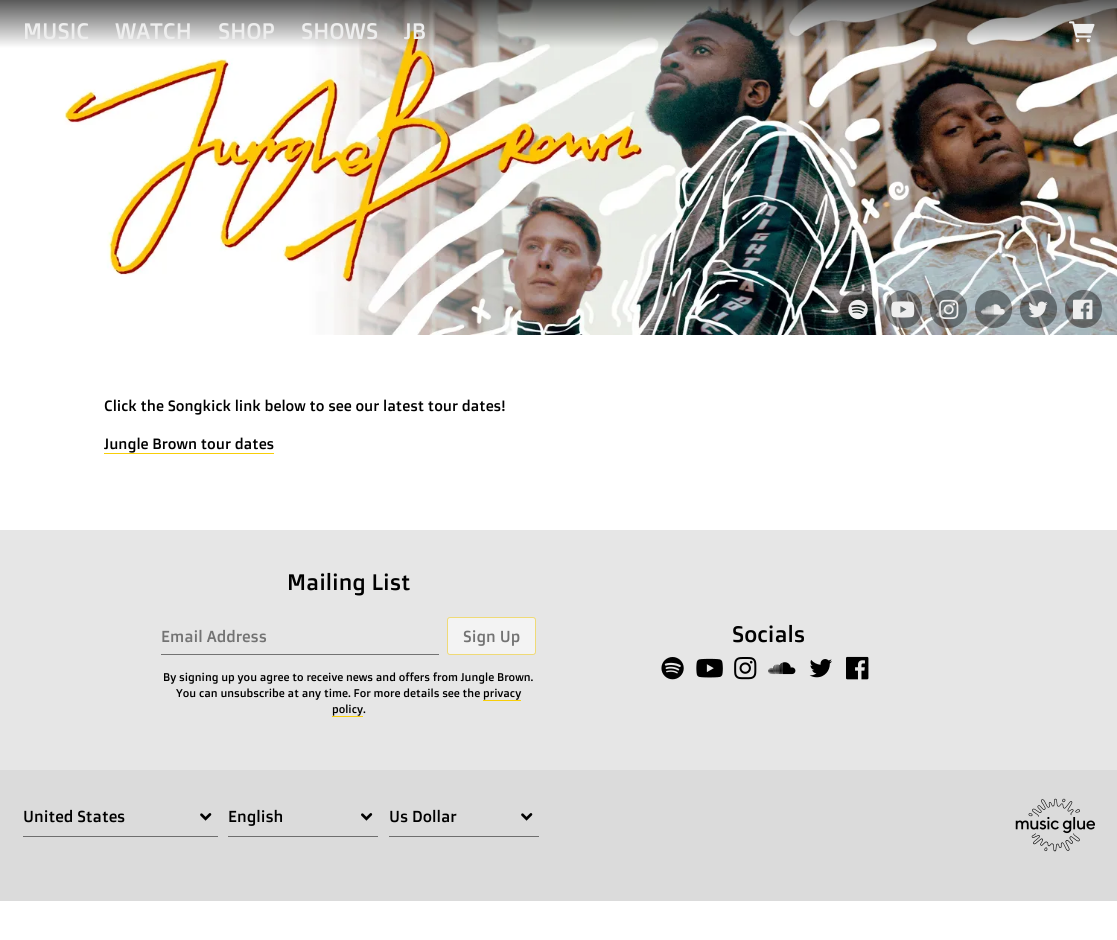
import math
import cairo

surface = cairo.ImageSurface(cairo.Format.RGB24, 1117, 940)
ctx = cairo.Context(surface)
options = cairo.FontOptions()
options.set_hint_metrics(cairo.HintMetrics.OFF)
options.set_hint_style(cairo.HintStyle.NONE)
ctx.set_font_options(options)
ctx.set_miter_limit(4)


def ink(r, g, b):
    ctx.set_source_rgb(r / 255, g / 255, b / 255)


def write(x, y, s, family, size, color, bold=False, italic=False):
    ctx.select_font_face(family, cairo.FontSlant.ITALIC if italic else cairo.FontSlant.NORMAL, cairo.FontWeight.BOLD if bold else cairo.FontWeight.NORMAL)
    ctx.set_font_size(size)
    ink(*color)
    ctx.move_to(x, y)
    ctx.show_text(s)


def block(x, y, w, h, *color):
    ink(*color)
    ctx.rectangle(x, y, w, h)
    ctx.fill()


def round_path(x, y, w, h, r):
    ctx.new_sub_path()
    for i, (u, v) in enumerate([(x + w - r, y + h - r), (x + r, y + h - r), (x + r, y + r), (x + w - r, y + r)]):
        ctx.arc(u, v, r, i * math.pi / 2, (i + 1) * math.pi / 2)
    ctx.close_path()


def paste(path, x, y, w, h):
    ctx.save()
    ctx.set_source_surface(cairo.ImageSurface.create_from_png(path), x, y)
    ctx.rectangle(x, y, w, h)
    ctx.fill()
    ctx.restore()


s1 = dict(family="Doppio One", size=22.5, color=(238, 238, 238))
s2 = dict(family="Doppio One", size=15, color=(0, 0, 0))
s3 = dict(family="Doppio One", size=22.5, color=(0, 0, 0))
s4 = dict(family="Doppio One", size=16, color=(115, 115, 115))
s5 = dict(family="Doppio One", size=11.25, color=(0, 0, 0))
s6 = dict(family="Doppio One", size=16, color=(0, 0, 0))

ink(255, 255, 255)
ctx.paint()
paste("pic1.png", 0, 0, 1117, 335)
ctx.set_source_rgba(0, 0, 0, 0.4)
round_path(840, 290, 37, 38, 18.5)
ctx.fill()
paste("pic2.png", 848, 299, 20, 21)
round_path(885, 290, 37, 38, 18.5)
ctx.fill()
paste("pic3.png", 891, 301, 24, 17)
round_path(930, 290, 37, 38, 18.5)
ctx.fill()
paste("pic4.png", 939, 299, 20, 21)
round_path(975, 290, 37, 38, 18.5)
ctx.fill()
paste("pic5.png", 981, 304, 24, 11)
round_path(1020, 290, 37, 38, 18.5)
ctx.fill()
paste("pic6.png", 1028, 301, 20, 17)
round_path(1065, 290, 37, 38, 18.5)
ctx.fill()
paste("pic7.png", 1073, 299, 20, 21)
write(23, 39, "MUSIC", **s1)
write(115, 39, "WATCH", **s1)
write(218, 39, "SHOP", **s1)
write(301, 39, "SHOWS", **s1)
write(404, 39, "JB", **s1)
paste("pic8.png", 1069, 21, 26, 22)
write(104, 411, "Click the Songkick link below to see our latest tour dates!", **s2)
write(104, 449, "Jungle Brown tour dates", **s2)
block(104, 453, 170, 1, 248, 206, 8)
block(0, 530, 1117, 240, 230, 230, 230)
write(287, 590, "Mailing List", **s3)
write(161, 642, "Email Address", **s4)
block(161, 654, 278, 1, 115, 115, 115)
ink(243, 243, 243)
round_path(447.5, 617.5, 88, 37, 2.5)
ctx.fill_preserve()
ink(239, 218, 119)
ctx.set_line_width(1)
ctx.stroke()
write(463, 642, "Sign Up", **s4)
write(163, 681, "By signing up you agree to receive news and offers from Jungle Brown.", **s5)
write(176, 697, "You can unsubscribe at any time. For more details see the privacy", **s5)
write(332, 713, "policy.", **s5)
block(483, 700, 38, 1, 248, 206, 8)
block(332, 716, 31, 1, 248, 206, 8)
write(732, 642, "Socials", **s3)
paste("pic9.png", 661, 657, 23, 23)
paste("pic10.png", 696, 658, 27, 20)
paste("pic11.png", 734, 657, 23, 23)
paste("pic12.png", 768, 662, 28, 13)
paste("pic13.png", 809, 659, 23, 19)
paste("pic14.png", 846, 656, 23, 24)
block(0, 770, 1117, 131, 219, 219, 219)
block(23, 836, 195, 1, 110, 110, 110)
write(23, 822, "United States", **s6)
paste("pic15.png", 200, 813, 12, 8)
block(228, 836, 150, 1, 110, 110, 110)
write(228, 822, "English", **s6)
paste("pic16.png", 361, 813, 12, 8)
block(389, 836, 150, 1, 110, 110, 110)
write(389, 822, "Us Dollar", **s6)
paste("pic15.png", 521, 813, 12, 8)
paste("pic17.png", 1015, 798, 80, 54)
surface.write_to_png("screenshot.png")
